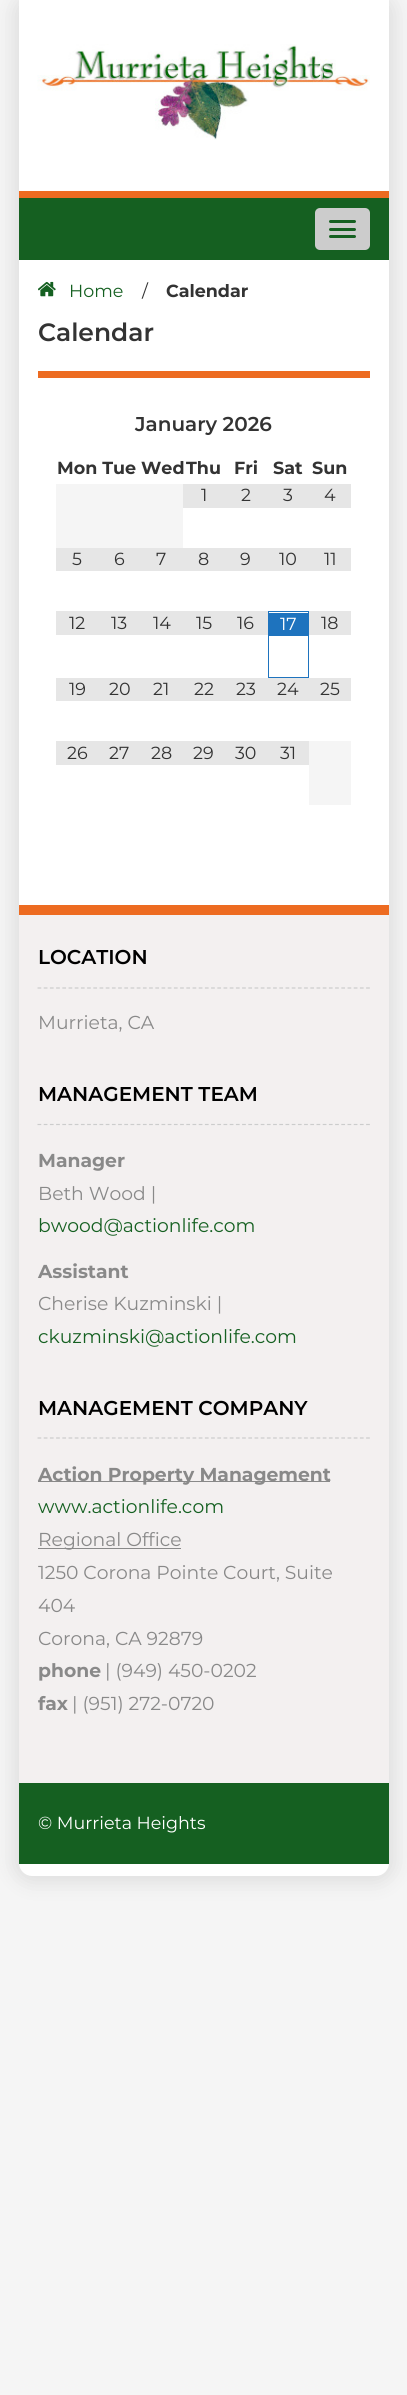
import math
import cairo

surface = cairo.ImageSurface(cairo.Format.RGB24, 407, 2395)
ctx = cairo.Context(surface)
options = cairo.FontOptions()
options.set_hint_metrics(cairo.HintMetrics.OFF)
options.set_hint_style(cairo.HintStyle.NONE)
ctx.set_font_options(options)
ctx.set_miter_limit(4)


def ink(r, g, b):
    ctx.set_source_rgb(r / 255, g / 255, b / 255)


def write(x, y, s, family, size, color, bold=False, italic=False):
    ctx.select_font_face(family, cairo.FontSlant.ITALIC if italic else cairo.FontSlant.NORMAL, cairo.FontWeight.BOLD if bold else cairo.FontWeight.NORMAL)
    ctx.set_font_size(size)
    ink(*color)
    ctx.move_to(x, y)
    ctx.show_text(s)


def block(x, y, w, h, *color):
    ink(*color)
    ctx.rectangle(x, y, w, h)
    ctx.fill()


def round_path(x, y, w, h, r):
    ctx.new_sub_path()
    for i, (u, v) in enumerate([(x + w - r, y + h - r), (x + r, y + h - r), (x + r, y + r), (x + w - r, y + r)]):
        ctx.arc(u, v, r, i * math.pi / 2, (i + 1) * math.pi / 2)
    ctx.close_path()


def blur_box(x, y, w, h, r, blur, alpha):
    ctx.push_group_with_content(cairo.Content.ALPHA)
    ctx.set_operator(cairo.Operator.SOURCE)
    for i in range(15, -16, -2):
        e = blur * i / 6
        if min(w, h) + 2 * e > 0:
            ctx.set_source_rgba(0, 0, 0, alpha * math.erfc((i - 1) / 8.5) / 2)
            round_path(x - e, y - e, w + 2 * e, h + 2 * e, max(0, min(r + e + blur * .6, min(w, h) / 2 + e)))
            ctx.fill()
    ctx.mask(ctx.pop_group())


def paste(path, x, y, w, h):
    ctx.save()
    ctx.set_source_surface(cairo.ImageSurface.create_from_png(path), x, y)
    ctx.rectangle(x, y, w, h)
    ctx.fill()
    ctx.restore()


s1 = dict(family="Montserrat", size=17.5, color=(21, 96, 33))
s2 = dict(family="Montserrat", size=17.5, color=(51, 51, 51))
s3 = dict(family="Montserrat", size=17.5, color=(51, 51, 51), bold=True)
s4 = dict(family="Montserrat SemiBold", size=25, color=(51, 51, 51))
s5 = dict(family="Montserrat SemiBold", size=20, color=(51, 51, 51))
s6 = dict(family="Montserrat", size=17.5, color=(255, 255, 255))
s7 = dict(family="Montserrat SemiBold", size=20, color=(0, 0, 0))
s8 = dict(family="Montserrat", size=18.75, color=(137, 137, 137))
s9 = dict(family="Montserrat", size=18.75, color=(137, 137, 137), bold=True)
s10 = dict(family="Montserrat", size=18.75, color=(21, 96, 33))

ink(245, 245, 245)
ctx.paint()
ink(201, 201, 201)
blur_box(13, -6, 382, 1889, 19, 9.5, 0.5)
ink(255, 255, 255)
ctx.new_path()
ctx.move_to(19, 0)
ctx.line_to(389, 0)
ctx.line_to(389, 1863)
ctx.curve_to(389, 1870, 383, 1876, 376, 1876)
ctx.line_to(32, 1876)
ctx.curve_to(25, 1876, 19, 1870, 19, 1863)
ctx.close_path()
ctx.fill()
paste("pic1.png", 37, 44, 333, 96)
block(19, 191, 370, 7, 237, 107, 33)
block(19, 198, 370, 62, 21, 96, 33)
ink(204, 204, 204)
round_path(315, 208, 55, 42, 5)
ctx.fill()
ink(21, 96, 33)
round_path(329, 220, 27, 3, 1.5)
ctx.fill()
round_path(329, 228, 27, 3, 1.5)
ctx.fill()
round_path(329, 235, 27, 3, 1.5)
ctx.fill()
paste("pic2.png", 38, 281, 18, 16)
write(69, 297, "Home", **s1)
write(142, 297, "/", **s2)
write(166, 297, "Calendar", **s3)
write(38, 341, "Calendar", **s4)
block(38, 371, 332, 7, 237, 107, 33)
write(135, 431, "January 2026", **s5)
write(57, 474, "Mon Tue", **s3)
write(141, 474, "Wed", **s3)
write(186, 474, "Thu", **s3)
write(234, 474, "Fri", **s3)
write(273, 474, "Sat", **s3)
write(312, 474, "Sun", **s3)
block(56, 484, 127, 64, 245, 245, 245)
block(183, 484, 168, 24, 230, 230, 230)
write(201, 501, "1", **s2)
write(241, 501, "2", **s2)
write(283, 501, "3", **s2)
write(324, 501, "4", **s2)
block(56, 548, 295, 23, 230, 230, 230)
write(72, 565, "5", **s2)
write(114, 565, "6", **s2)
write(156, 565, "7", **s2)
write(198, 565, "8", **s2)
write(240, 565, "9", **s2)
write(279, 565, "10", **s2)
write(324, 565, "11", **s2)
block(56, 611, 212, 24, 230, 230, 230)
write(69, 629, "12", **s2)
write(111, 629, "13", **s2)
write(153, 629, "14", **s2)
write(196, 629, "15", **s2)
write(237, 629, "16", **s2)
ctx.rectangle(268.5, 611.5, 40, 66)
ink(30, 115, 190)
ctx.set_line_width(1)
ctx.stroke()
block(269, 613, 39, 23, 30, 115, 190)
write(280, 630, "17", **s6)
block(309, 611, 42, 24, 230, 230, 230)
write(321, 629, "18", **s2)
block(56, 678, 295, 23, 230, 230, 230)
write(69, 695, "19", **s2)
write(109, 695, "20", **s2)
write(153, 695, "21", **s2)
write(194, 695, "22", **s2)
write(236, 695, "23", **s2)
write(277, 695, "24", **s2)
write(320, 695, "25", **s2)
block(56, 741, 253, 24, 230, 230, 230)
write(67, 759, "26", **s2)
write(109, 759, "27", **s2)
write(151, 759, "28", **s2)
write(193, 759, "29", **s2)
write(235, 759, "30", **s2)
write(280, 759, "31", **s2)
block(309, 741, 42, 64, 245, 245, 245)
block(19, 915, 370, 868, 243, 240, 240)
block(19, 905, 370, 10, 237, 107, 33)
ctx.new_path()
ctx.move_to(37.5, 988)
ctx.line_to(370, 988)
ink(204, 204, 204)
ctx.set_line_width(1.2)
ctx.set_dash([3.75, 2.45])
ctx.stroke()
write(38, 964, "LOCATION", **s7)
write(38, 1029, "Murrieta, CA", **s8)
ctx.new_path()
ctx.move_to(37.5, 1124.5)
ctx.line_to(370, 1124.5)
ink(204, 204, 204)
ctx.stroke()
write(38, 1101, "MANAGEMENT TEAM", **s7)
write(38, 1167, "Manager", **s9)
write(38, 1200, "Beth Wood |", **s8)
write(38, 1232, "bwood@actionlife.com", **s10)
write(38, 1278, "Assistant", **s9)
write(38, 1310, "Cherise Kuzminski |", **s8)
write(38, 1343, "ckuzminski@actionlife.com", **s10)
ctx.new_path()
ctx.move_to(37.5, 1438)
ctx.line_to(370, 1438)
ink(204, 204, 204)
ctx.stroke()
write(38, 1415, "MANAGEMENT COMPANY", **s7)
block(38, 1481, 292, 1, 137, 137, 137)
write(38, 1481, "Action Property Management", **s9)
write(38, 1513, "www.actionlife.com", **s10)
block(38, 1548, 143, 1, 137, 137, 137)
write(38, 1546, "Regional Office", **s8)
write(38, 1579, "1250 Corona Pointe Court, Suite", **s8)
write(38, 1612, "404", **s8)
write(38, 1645, "Corona, CA 92879", **s8)
write(38, 1677, "phone", **s9)
write(105, 1677, "| (949) 450-0202", **s8)
write(38, 1710, "fax", **s9)
write(72, 1710, "| (951) 272-0720", **s8)
block(19, 1783, 370, 81, 21, 96, 33)
write(38, 1829, "© Murrieta Heights", **s6)
surface.write_to_png("screenshot.png")
